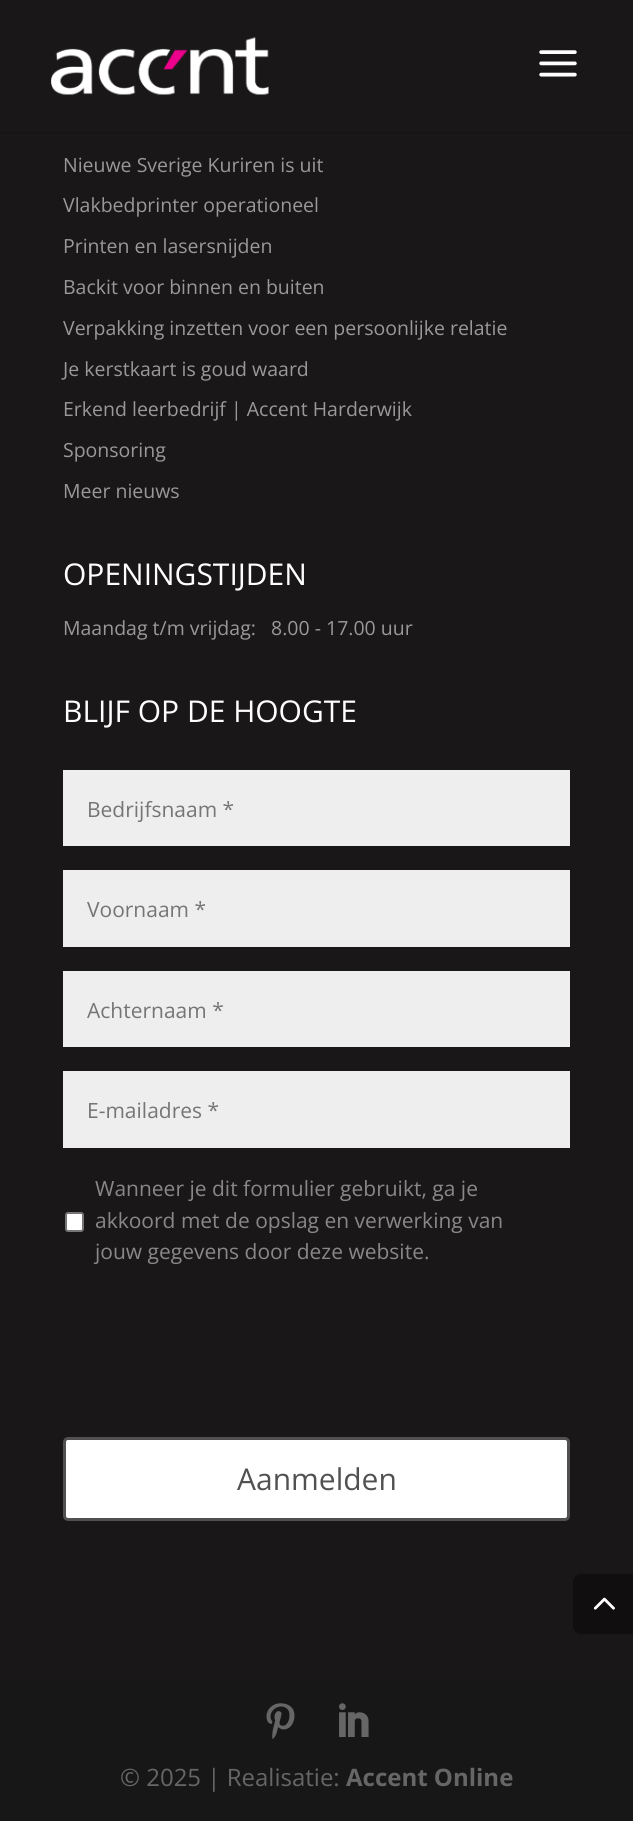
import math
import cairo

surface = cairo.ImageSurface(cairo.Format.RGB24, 633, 1821)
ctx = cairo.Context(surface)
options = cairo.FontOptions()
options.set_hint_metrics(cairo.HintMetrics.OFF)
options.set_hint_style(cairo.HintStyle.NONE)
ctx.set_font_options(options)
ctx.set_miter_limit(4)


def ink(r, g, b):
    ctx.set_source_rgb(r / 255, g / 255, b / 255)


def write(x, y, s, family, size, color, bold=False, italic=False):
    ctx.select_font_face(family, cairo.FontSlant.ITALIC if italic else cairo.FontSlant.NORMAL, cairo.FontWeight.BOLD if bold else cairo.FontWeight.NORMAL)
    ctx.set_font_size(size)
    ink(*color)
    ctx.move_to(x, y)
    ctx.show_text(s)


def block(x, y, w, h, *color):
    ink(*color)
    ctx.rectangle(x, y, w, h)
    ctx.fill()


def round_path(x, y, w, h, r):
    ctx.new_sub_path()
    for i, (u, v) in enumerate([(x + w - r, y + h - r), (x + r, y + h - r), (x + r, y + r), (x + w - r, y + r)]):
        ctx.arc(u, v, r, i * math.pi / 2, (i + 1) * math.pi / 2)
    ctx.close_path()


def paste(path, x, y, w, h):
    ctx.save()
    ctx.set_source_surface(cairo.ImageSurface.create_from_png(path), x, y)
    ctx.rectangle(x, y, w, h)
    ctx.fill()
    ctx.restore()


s1 = dict(family="Open Sans", size=19.5, color=(153, 153, 153))
s2 = dict(family="Open Sans", size=30, color=(255, 255, 255))
s3 = dict(family="Open Sans", size=21, color=(117, 117, 117))
s4 = dict(family="Open Sans", size=21, color=(136, 136, 136))
s5 = dict(family="Open Sans", size=30, color=(81, 81, 81))
s6 = dict(family="Open Sans", size=24, color=(102, 102, 102))
s7 = dict(family="Open Sans", size=24, color=(102, 102, 102), bold=True)

ink(26, 23, 24)
ctx.paint()
ctx.set_source_rgba(0, 0, 0, 0.1)
ctx.rectangle(0, 132, 633, 2)
ctx.fill()
paste("pic1.png", 51, 37, 218, 58)
paste("pic2.png", 539, 50, 38, 27)
write(63, 172, "Nieuwe Sverige Kuriren is uit", **s1)
write(63, 212, "Vlakbedprinter operationeel", **s1)
write(63, 253, "Printen en lasersnijden", **s1)
write(63, 294, "Backit voor binnen en buiten", **s1)
write(63, 335, "Verpakking inzetten voor een persoonlijke relatie", **s1)
write(63, 376, "Je kerstkaart is goud waard", **s1)
write(63, 416, "Erkend leerbedrijf | Accent Harderwijk", **s1)
write(63, 457, "Sponsoring", **s1)
write(63, 498, "Meer nieuws", **s1)
write(63, 585, "OPENINGSTIJDEN", **s2)
write(63, 635, "Maandag t/m vrijdag:   8.00 - 17.00 uur", **s1)
write(63, 722, "BLIJF OP DE HOOGTE", **s2)
block(63, 770, 507, 76, 238, 238, 238)
write(87, 817, "Bedrijfsnaam *", **s3)
block(63, 870, 507, 77, 238, 238, 238)
write(87, 917, "Voornaam *", **s3)
block(63, 971, 507, 76, 238, 238, 238)
write(87, 1018, "Achternaam *", **s3)
block(63, 1071, 507, 77, 238, 238, 238)
write(87, 1118, "E-mailadres *", **s3)
ink(255, 255, 255)
round_path(66, 1213, 17, 18, 2)
ctx.fill_preserve()
ink(118, 118, 118)
ctx.stroke()
write(95, 1196, "Wanneer je dit formulier gebruikt, ga je", **s4)
write(95, 1228, "akkoord met de opslag en verwerking van", **s4)
write(95, 1259, "jouw gegevens door deze website.", **s4)
ink(255, 255, 255)
round_path(64.5, 1438.5, 504, 81, 3.5)
ctx.fill_preserve()
ink(81, 81, 81)
ctx.set_line_width(3)
ctx.stroke()
write(237, 1490, "Aanmelden", **s5)
ink(16, 14, 14)
ctx.new_path()
ctx.move_to(581, 1574)
ctx.line_to(633, 1574)
ctx.line_to(633, 1634)
ctx.line_to(581, 1634)
ctx.curve_to(576.5, 1634, 573, 1630.5, 573, 1626)
ctx.line_to(573, 1582)
ctx.curve_to(573, 1577.5, 576.5, 1574, 581, 1574)
ctx.close_path()
ctx.fill()
paste("pic3.png", 593, 1597, 22, 13)
block(0, 1680, 633, 141, 23, 23, 23)
paste("pic4.png", 266, 1703, 29, 36)
paste("pic5.png", 339, 1703, 30, 34)
write(120, 1786, "© 2025 | Realisatie:", **s6)
write(346, 1786, "Accent Online", **s7)
surface.write_to_png("screenshot.png")
